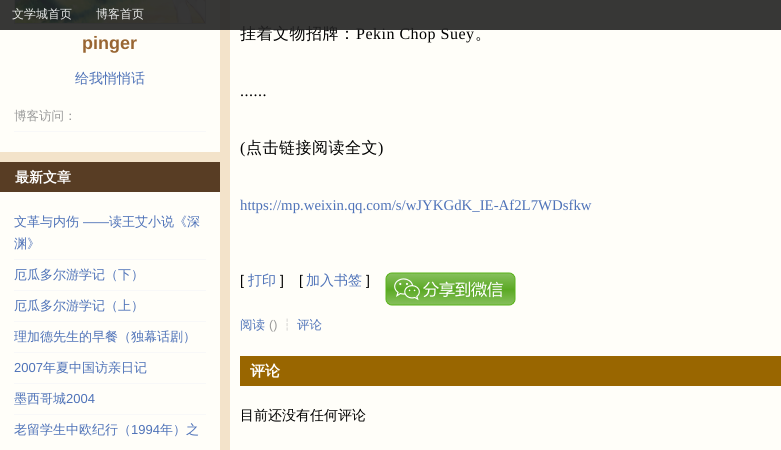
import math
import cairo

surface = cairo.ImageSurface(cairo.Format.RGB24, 781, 450)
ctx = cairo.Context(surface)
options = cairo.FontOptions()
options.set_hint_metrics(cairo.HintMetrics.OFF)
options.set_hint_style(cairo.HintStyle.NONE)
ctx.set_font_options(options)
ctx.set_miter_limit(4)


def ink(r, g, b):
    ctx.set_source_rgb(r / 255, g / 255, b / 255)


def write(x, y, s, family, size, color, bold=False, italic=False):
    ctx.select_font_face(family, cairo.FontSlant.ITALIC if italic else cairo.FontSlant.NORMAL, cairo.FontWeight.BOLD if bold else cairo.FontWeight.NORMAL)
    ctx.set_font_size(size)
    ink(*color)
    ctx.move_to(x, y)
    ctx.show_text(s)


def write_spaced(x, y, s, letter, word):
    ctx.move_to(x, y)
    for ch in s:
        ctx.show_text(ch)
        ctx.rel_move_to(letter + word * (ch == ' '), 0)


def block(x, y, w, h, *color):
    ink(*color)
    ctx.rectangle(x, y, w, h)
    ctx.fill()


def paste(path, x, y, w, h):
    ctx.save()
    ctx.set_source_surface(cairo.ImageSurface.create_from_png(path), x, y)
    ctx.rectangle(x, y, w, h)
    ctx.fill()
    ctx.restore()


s1 = dict(family="WenQuanYi Zen Hei Medium", size=12, color=(233, 234, 234))
s2 = dict(family="Liberation Sans", size=18, color=(153, 102, 51), bold=True)
s3 = dict(family="WenQuanYi Zen Hei Medium", size=14, color=(78, 114, 184))
s4 = dict(family="WenQuanYi Zen Hei Medium", size=12.5, color=(153, 153, 153))
s5 = dict(family="WenQuanYi Zen Hei", size=14, color=(255, 255, 255), bold=True)
s6 = dict(family="WenQuanYi Zen Hei Medium", size=13, color=(78, 114, 184))
s7 = dict(family="Liberation Sans", size=13, color=(78, 114, 184))
s8 = dict(family="Liberation Serif", size=14.8, color=(78, 114, 184))
s9 = dict(family="Liberation Sans", size=14, color=(0, 0, 0))
s10 = dict(family="WenQuanYi Zen Hei Medium", size=12.5, color=(78, 114, 184))
s11 = dict(family="Liberation Sans", size=12.5, color=(153, 153, 153))
s12 = dict(family="WenQuanYi Zen Hei", size=15, color=(255, 255, 255), bold=True)
s13 = dict(family="WenQuanYi Zen Hei Medium", size=14, color=(0, 0, 0))

ink(243, 227, 202)
ctx.paint()
block(0, 0, 220, 152, 255, 254, 249)
ctx.rectangle(14.5, -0.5, 191, 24)
ink(211, 215, 212)
ctx.set_line_width(1)
ctx.stroke()
paste("pic1.png", 15, 0, 190, 23)
block(230, 0, 551, 450, 255, 254, 249)
ctx.select_font_face("WenQuanYi Zen Hei Medium")
ctx.set_font_size(16)
ink(0, 0, 0)
write_spaced(240, 39, "挂着文物招牌：", 0.5, 0)
ctx.select_font_face("Liberation Serif")
write_spaced(356, 39, "Pekin Chop Suey", 0.5, 0)
ctx.set_source_rgba(0.133, 0.133, 0.133, 0.9)
ctx.rectangle(0, 0, 781, 30)
ctx.fill()
write(12, 18, "文学城首页", **s1)
write(96, 18, "博客首页", **s1)
write(82, 49, "pinger", **s2)
write(75, 83, "给我悄悄话", **s3)
block(14, 131, 192, 1, 248, 248, 248)
write(14, 120, "博客访问：", **s4)
block(0, 162, 220, 30, 88, 61, 36)
write(15, 182, "最新文章", **s5)
block(0, 192, 220, 258, 255, 254, 249)
block(14, 259, 192, 1, 248, 248, 248)
write(14, 226, "文革与内伤", **s6)
write(83, 226, "——", **s7)
write(109, 226, "读王艾小说《深", **s6)
write(14, 248, "渊》", **s6)
block(14, 290, 192, 1, 248, 248, 248)
write(14, 279, "厄瓜多尔游学记（下）", **s6)
block(14, 321, 192, 1, 248, 248, 248)
write(14, 310, "厄瓜多尔游学记（上）", **s6)
block(14, 352, 192, 1, 248, 248, 248)
write(14, 341, "理加德先生的早餐（独幕话剧）", **s6)
block(14, 383, 192, 1, 248, 248, 248)
write(14, 372, "2007", **s7)
write(43, 372, "年夏中国访亲日记", **s6)
block(14, 414, 192, 1, 248, 248, 248)
write(14, 403, "墨西哥城", **s6)
write(66, 403, "2004", **s7)
write(14, 434, "老留学生中欧纪行（", **s6)
write(131, 434, "1994", **s7)
write(160, 434, "年）之", **s6)
ctx.set_font_size(16)
ink(0, 0, 0)
write_spaced(475, 39, "。", 0.5, 0)
ctx.select_font_face("Liberation Serif")
write_spaced(240, 96, "......", 0.5, 0)
write_spaced(240, 153, "(", 0.5, 0)
ctx.select_font_face("WenQuanYi Zen Hei Medium")
write_spaced(246, 153, "点击链接阅读全文", 0.5, 0)
ctx.select_font_face("Liberation Serif")
write_spaced(378, 153, ")", 0.5, 0)
write(240, 210, "https://mp.weixin.qq.com/s/wJYKGdK_IE-Af2L7WDsfkw", **s8)
write(240, 285, "[", **s9)
write(248, 285, "打印", **s3)
write(280, 285, "]", **s9)
write(299, 285, "[", **s9)
write(306, 285, "加入书签", **s3)
write(366, 285, "]", **s9)
paste("pic2.png", 385, 272, 131, 34)
write(240, 329, "阅读", **s10)
write(269, 329, "()", **s11)
write(281, 329, "┆", **s4)
write(297, 329, "评论", **s10)
block(240, 356, 541, 30, 153, 102, 0)
write(250, 376, "评论", **s12)
write(240, 420, "目前还没有任何评论", **s13)
surface.write_to_png("screenshot.png")
